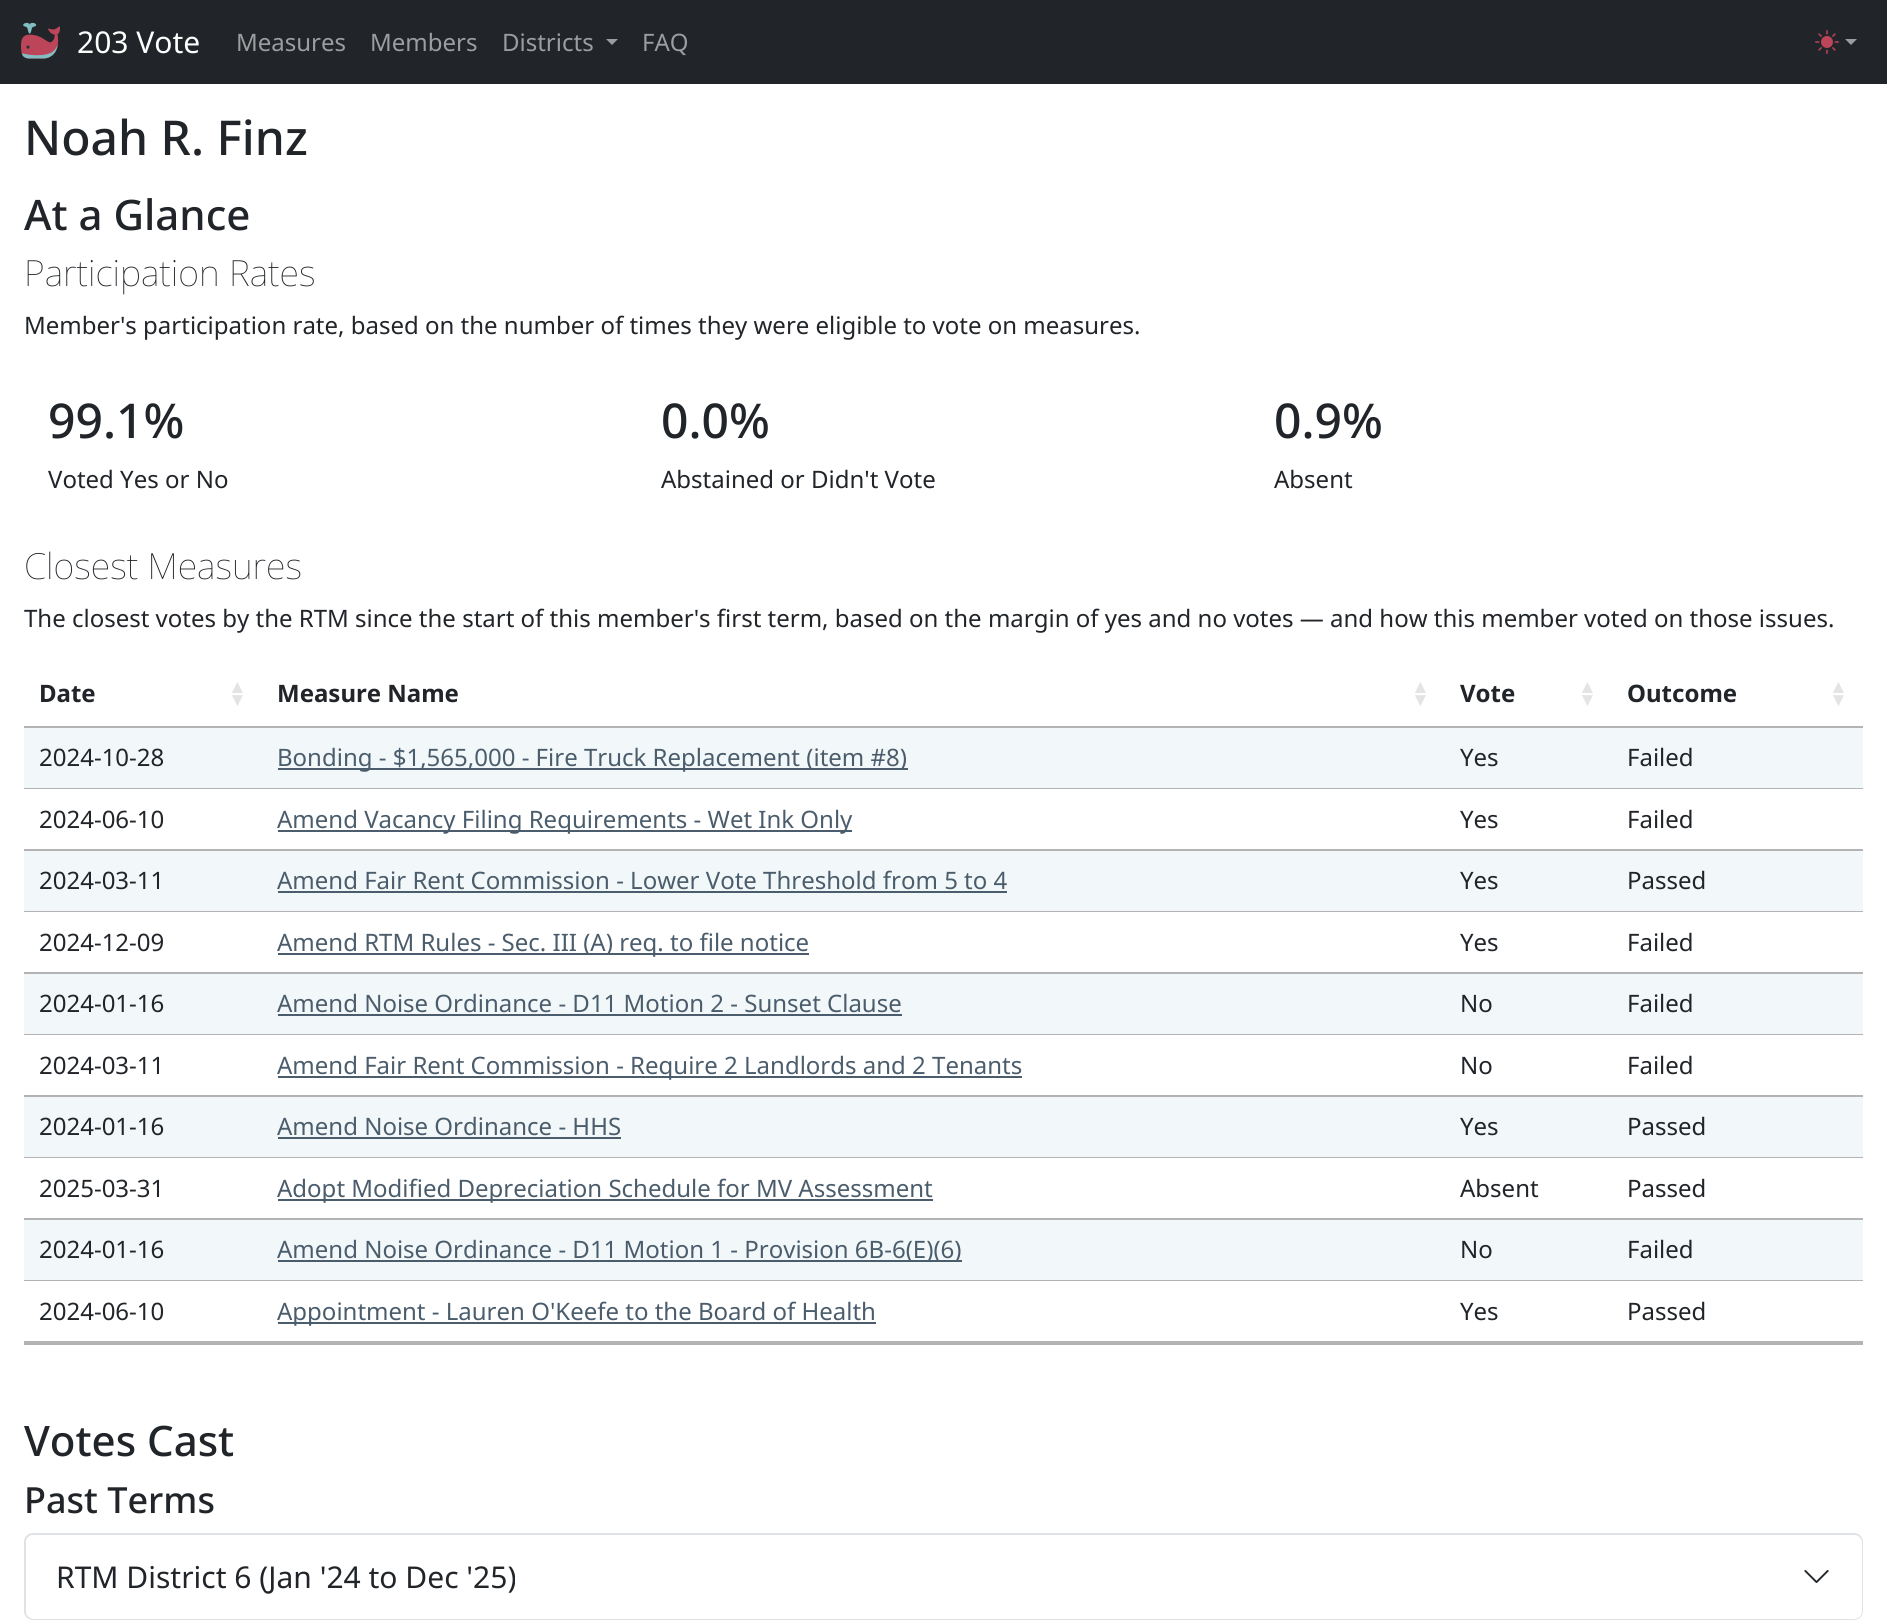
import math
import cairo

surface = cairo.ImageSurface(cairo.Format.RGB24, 1887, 1620)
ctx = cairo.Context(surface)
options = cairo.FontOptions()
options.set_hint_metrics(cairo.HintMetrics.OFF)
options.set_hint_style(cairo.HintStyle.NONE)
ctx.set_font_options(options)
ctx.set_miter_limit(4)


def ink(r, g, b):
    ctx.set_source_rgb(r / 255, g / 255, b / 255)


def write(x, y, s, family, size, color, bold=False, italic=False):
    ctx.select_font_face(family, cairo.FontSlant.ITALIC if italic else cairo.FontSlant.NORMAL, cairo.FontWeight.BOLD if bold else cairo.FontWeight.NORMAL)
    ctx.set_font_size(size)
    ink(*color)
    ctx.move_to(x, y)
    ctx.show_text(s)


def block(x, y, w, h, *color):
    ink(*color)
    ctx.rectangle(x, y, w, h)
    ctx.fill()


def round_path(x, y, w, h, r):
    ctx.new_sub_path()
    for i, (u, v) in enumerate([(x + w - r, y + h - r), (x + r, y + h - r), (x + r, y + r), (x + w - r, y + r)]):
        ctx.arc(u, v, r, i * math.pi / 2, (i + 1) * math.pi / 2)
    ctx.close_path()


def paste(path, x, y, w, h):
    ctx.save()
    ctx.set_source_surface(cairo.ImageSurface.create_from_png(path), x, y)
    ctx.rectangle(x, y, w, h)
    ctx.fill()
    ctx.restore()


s1 = dict(family="Noto Sans", size=30, color=(255, 255, 255))
s2 = dict(family="Noto Sans", size=24, color=(155, 157, 159))
s3 = dict(family="Noto Sans Medium", size=48, color=(33, 37, 41))
s4 = dict(family="Noto Sans Medium", size=42, color=(33, 37, 41))
s5 = dict(family="Noto Sans Thin", size=36, color=(33, 37, 41))
s6 = dict(family="Noto Sans", size=24, color=(33, 37, 41))
s7 = dict(family="Noto Sans", size=24, color=(33, 37, 41), bold=True)
s8 = dict(family="Liberation Sans", size=19, color=(227, 228, 228), bold=True)
s9 = dict(family="Noto Sans", size=24, color=(75, 93, 108))
s10 = dict(family="Noto Sans Medium", size=36, color=(33, 37, 41))
s11 = dict(family="Noto Sans", size=30, color=(33, 37, 41))

ink(255, 255, 255)
ctx.paint()
block(0, 0, 1887, 84, 33, 37, 41)
paste("pic1.png", 21, 22, 39, 37)
write(77, 53, "203 Vote", **s1)
write(236, 51, "Measures", **s2)
write(370, 51, "Members", **s2)
write(502, 51, "Districts", **s2)
ctx.new_path()
ctx.move_to(606, 39)
ctx.line_to(618, 39)
ctx.line_to(612, 45)
ctx.close_path()
ctx.fill()
write(642, 51, "FAQ", **s2)
paste("pic2.png", 1815, 30, 24, 24)
ctx.new_path()
ctx.move_to(1845, 39)
ctx.line_to(1857, 39)
ctx.line_to(1851, 45)
ctx.close_path()
ctx.fill()
write(24, 155, "Noah R. Finz", **s3)
write(24, 230, "At a Glance", **s4)
write(24, 286, "Participation Rates", **s5)
write(24, 334, "Member's participation rate, based on the number of times they were eligible to vote on measures.", **s6)
write(48, 438, "99.1%", **s3)
write(48, 488, "Voted Yes or No", **s6)
write(661, 438, "0.0%", **s3)
write(661, 488, "Abstained or Didn't Vote", **s6)
write(1274, 438, "0.9%", **s3)
write(1274, 488, "Absent", **s6)
write(24, 579, "Closest Measures", **s5)
write(24, 627, "The closest votes by the RTM since the start of this member's first term, based on the margin of yes and no votes — and how this member voted on those issues.", **s6)
block(24, 1343, 1839, 2, 179, 179, 179)
block(24, 726, 1839, 2, 179, 179, 179)
write(39, 702, "Date", **s7)
write(228, 693, "▲", **s8)
write(228, 706, "▼", **s8)
write(277, 702, "Measure Name", **s7)
write(1411, 693, "▲", **s8)
write(1411, 706, "▼", **s8)
write(1460, 702, "Vote", **s7)
write(1578, 693, "▲", **s8)
write(1578, 706, "▼", **s8)
write(1627, 702, "Outcome", **s7)
write(1829, 693, "▲", **s8)
write(1829, 706, "▼", **s8)
block(24, 728, 1839, 60, 242, 248, 249)
block(24, 788, 1839, 1, 179, 179, 179)
write(39, 766, "2024-10-28", **s6)
block(278, 768, 630, 2, 75, 93, 108)
write(277, 766, "Bonding - $1,565,000 - Fire Truck Replacement (item #8)", **s9)
write(1460, 766, "Yes", **s6)
write(1627, 766, "Failed", **s6)
block(24, 849, 1839, 2, 179, 179, 179)
write(39, 828, "2024-06-10", **s6)
block(278, 830, 574, 2, 75, 93, 108)
write(277, 828, "Amend Vacancy Filing Requirements - Wet Ink Only", **s9)
write(1460, 828, "Yes", **s6)
write(1627, 828, "Failed", **s6)
block(24, 851, 1839, 60, 242, 248, 249)
block(24, 911, 1839, 1, 179, 179, 179)
write(39, 889, "2024-03-11", **s6)
write(277, 889, "Amend Fair Rent Commission - Lower Vote Threshold from 5 to 4", **s9)
block(278, 891, 729, 2, 75, 93, 108)
write(1460, 889, "Yes", **s6)
write(1627, 889, "Passed", **s6)
block(24, 972, 1839, 2, 179, 179, 179)
write(39, 951, "2024-12-09", **s6)
block(278, 953, 531, 2, 75, 93, 108)
write(277, 951, "Amend RTM Rules - Sec. III (A) req. to file notice", **s9)
write(1460, 951, "Yes", **s6)
write(1627, 951, "Failed", **s6)
block(24, 974, 1839, 60, 242, 248, 249)
block(24, 1034, 1839, 1, 179, 179, 179)
write(39, 1012, "2024-01-16", **s6)
write(277, 1012, "Amend Noise Ordinance - D11 Motion 2 - Sunset Clause", **s9)
block(278, 1014, 624, 2, 75, 93, 108)
write(1460, 1012, "No", **s6)
write(1627, 1012, "Failed", **s6)
block(24, 1095, 1839, 2, 179, 179, 179)
write(39, 1074, "2024-03-11", **s6)
block(278, 1076, 744, 2, 75, 93, 108)
write(277, 1074, "Amend Fair Rent Commission - Require 2 Landlords and 2 Tenants", **s9)
write(1460, 1074, "No", **s6)
write(1627, 1074, "Failed", **s6)
block(24, 1097, 1839, 60, 242, 248, 249)
block(24, 1157, 1839, 1, 179, 179, 179)
write(39, 1135, "2024-01-16", **s6)
write(277, 1135, "Amend Noise Ordinance - HHS", **s9)
block(278, 1137, 343, 2, 75, 93, 108)
write(1460, 1135, "Yes", **s6)
write(1627, 1135, "Passed", **s6)
block(24, 1218, 1839, 2, 179, 179, 179)
write(39, 1197, "2025-03-31", **s6)
block(278, 1199, 655, 2, 75, 93, 108)
write(277, 1197, "Adopt Modified Depreciation Schedule for MV Assessment", **s9)
write(1460, 1197, "Absent", **s6)
write(1627, 1197, "Passed", **s6)
block(24, 1220, 1839, 60, 242, 248, 249)
block(24, 1280, 1839, 1, 179, 179, 179)
write(39, 1258, "2024-01-16", **s6)
block(278, 1260, 684, 2, 75, 93, 108)
write(277, 1258, "Amend Noise Ordinance - D11 Motion 1 - Provision 6B-6(E)(6)", **s9)
write(1460, 1258, "No", **s6)
write(1627, 1258, "Failed", **s6)
block(24, 1341, 1839, 2, 179, 179, 179)
write(39, 1320, "2024-06-10", **s6)
block(278, 1322, 598, 2, 75, 93, 108)
write(277, 1320, "Appointment - Lauren O'Keefe to the Board of Health", **s9)
write(1460, 1320, "Yes", **s6)
write(1627, 1320, "Passed", **s6)
write(24, 1456, "Votes Cast", **s4)
write(24, 1513, "Past Terms", **s10)
round_path(25, 1534, 1837, 85, 8)
ink(222, 226, 230)
ctx.stroke()
ink(255, 255, 255)
round_path(26, 1535, 1836, 84, 8)
ctx.fill()
write(56, 1588, "RTM District 6 (Jan '24 to Dec '25)", **s11)
paste("pic3.png", 1804, 1570, 25, 13)
surface.write_to_png("screenshot.png")
